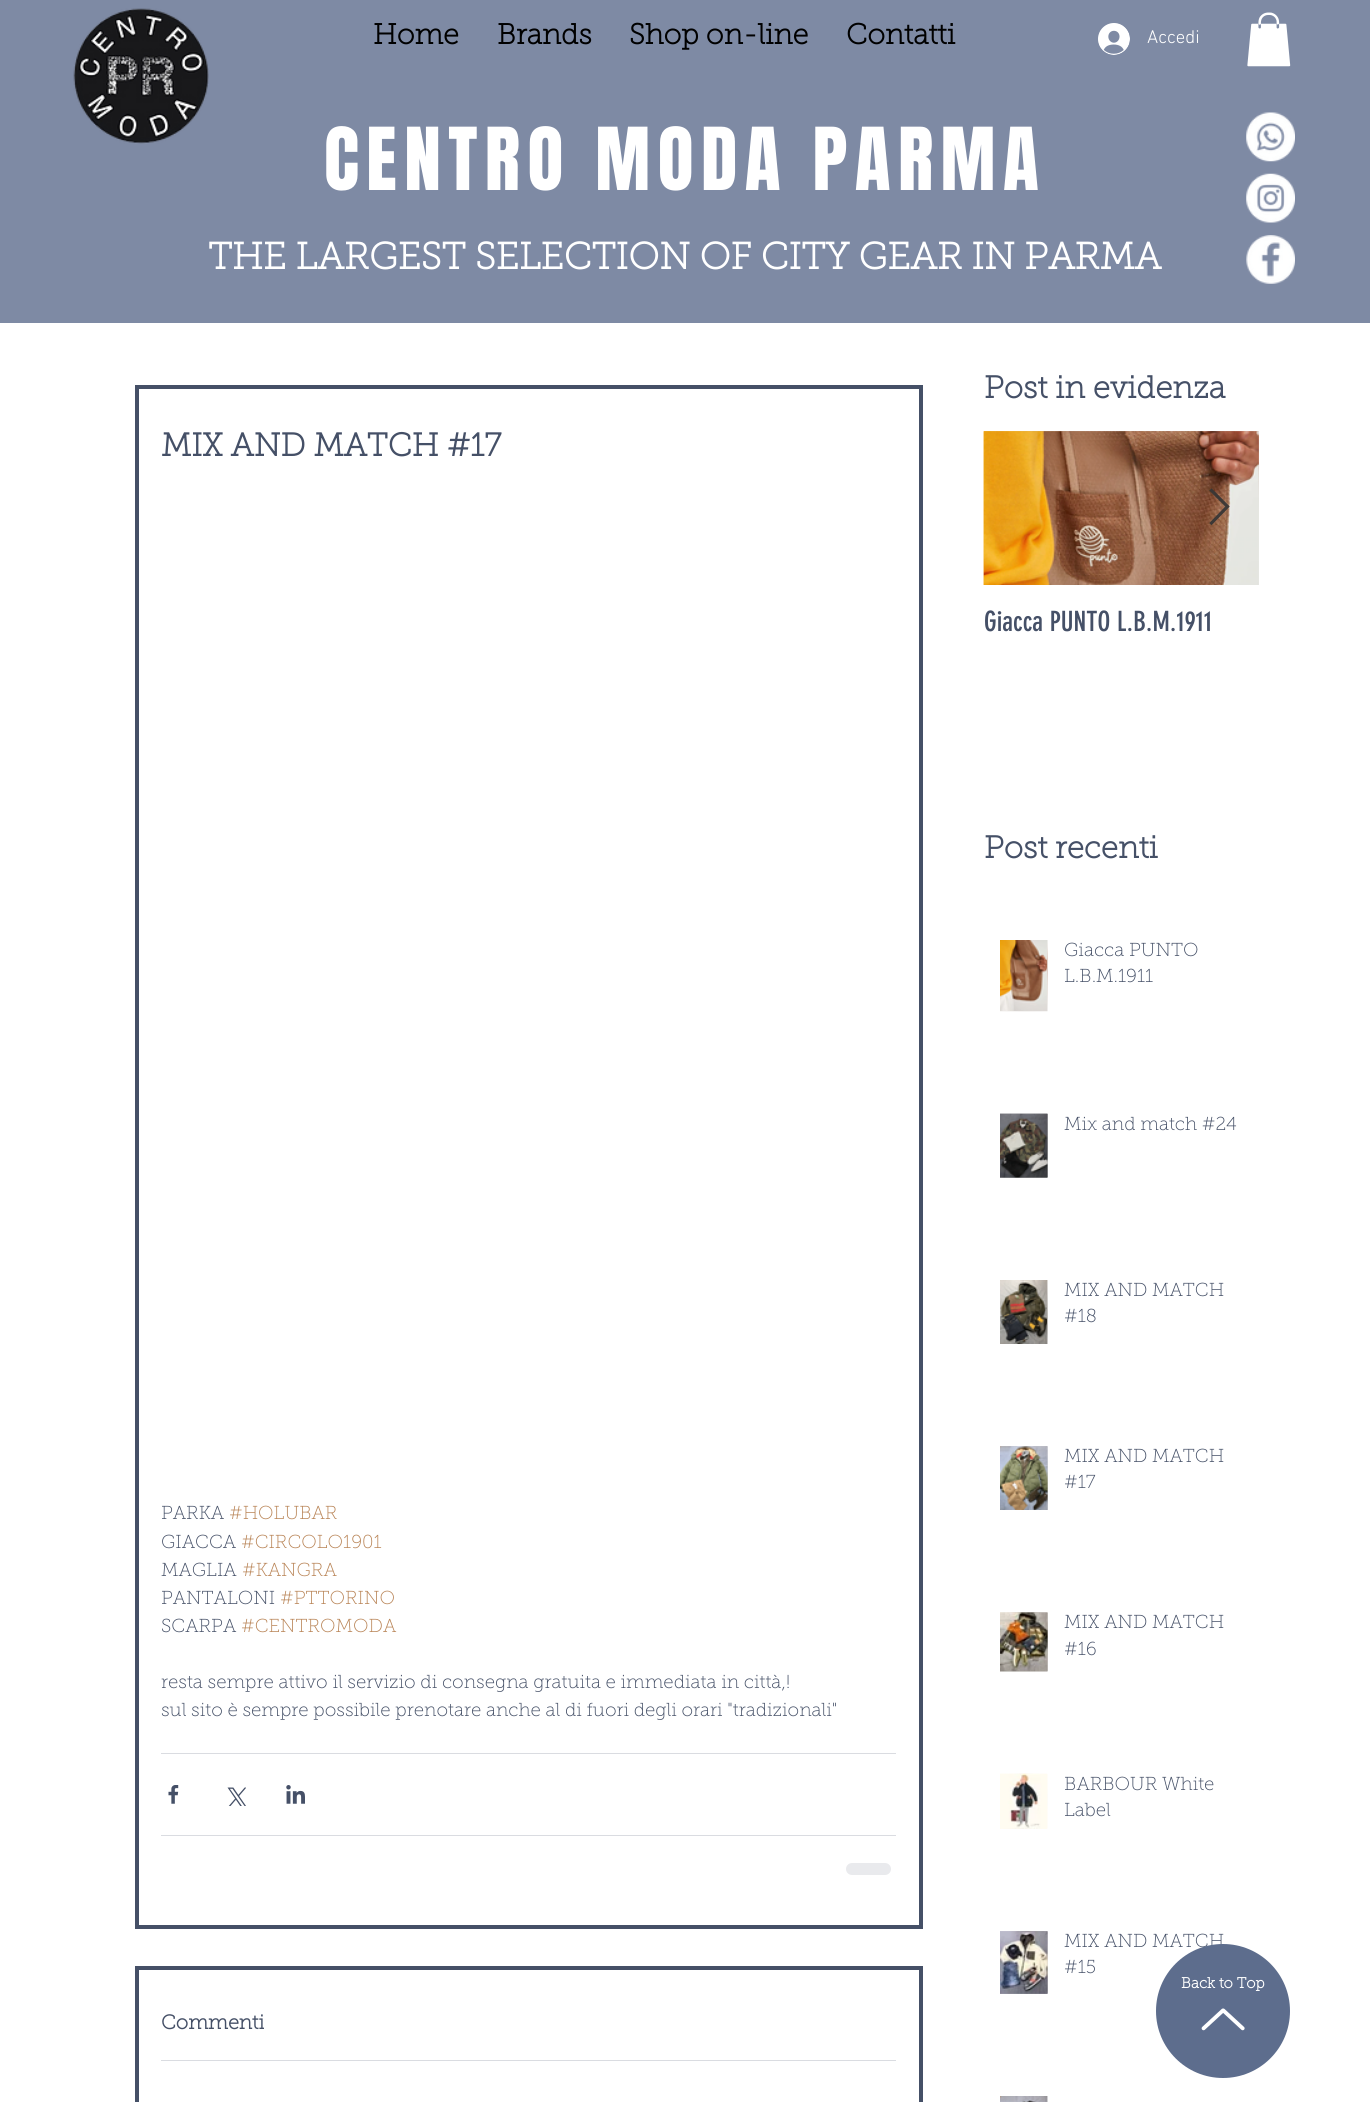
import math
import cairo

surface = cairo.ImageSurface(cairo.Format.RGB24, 1370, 2102)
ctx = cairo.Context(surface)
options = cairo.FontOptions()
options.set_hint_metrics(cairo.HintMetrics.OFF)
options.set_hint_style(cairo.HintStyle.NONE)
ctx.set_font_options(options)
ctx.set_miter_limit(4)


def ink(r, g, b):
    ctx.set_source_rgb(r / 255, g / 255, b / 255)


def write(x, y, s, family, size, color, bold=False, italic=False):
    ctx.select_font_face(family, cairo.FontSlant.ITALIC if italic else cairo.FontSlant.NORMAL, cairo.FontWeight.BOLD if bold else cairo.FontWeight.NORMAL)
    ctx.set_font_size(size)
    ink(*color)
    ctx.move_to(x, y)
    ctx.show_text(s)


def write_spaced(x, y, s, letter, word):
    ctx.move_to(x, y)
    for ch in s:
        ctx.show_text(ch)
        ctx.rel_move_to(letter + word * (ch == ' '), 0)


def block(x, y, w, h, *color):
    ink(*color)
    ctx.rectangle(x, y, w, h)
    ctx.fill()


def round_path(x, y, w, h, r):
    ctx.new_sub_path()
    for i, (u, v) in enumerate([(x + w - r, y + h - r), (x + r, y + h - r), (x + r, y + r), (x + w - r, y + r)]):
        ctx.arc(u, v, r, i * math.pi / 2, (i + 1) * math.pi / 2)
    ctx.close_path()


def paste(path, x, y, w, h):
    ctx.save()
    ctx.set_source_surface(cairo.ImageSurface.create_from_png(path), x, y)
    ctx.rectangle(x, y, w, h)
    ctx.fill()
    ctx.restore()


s1 = dict(family="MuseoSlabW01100", size=28.75, color=(0, 0, 0), bold=True)
s2 = dict(family="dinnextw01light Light", size=18.75, color=(255, 255, 255))
s3 = dict(family="MuseoSlabW01100", size=37.5, color=(255, 255, 255), bold=True)
s4 = dict(family="MuseoSlabW01100", size=31.25, color=(69, 80, 103), bold=True)
s5 = dict(family="MuseoSlabW01100", size=32.5, color=(69, 80, 103), bold=True)
s6 = dict(family="MuseoSlabW01100 Thin", size=18.75, color=(69, 80, 103))
s7 = dict(family="MuseoSlabW01100 Thin", size=18.75, color=(184, 131, 85))
s8 = dict(family="MuseoSlabW01100", size=20, color=(69, 80, 103), bold=True)
s9 = dict(family="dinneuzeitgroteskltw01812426", size=27.5, color=(69, 80, 103))
s10 = dict(family="MuseoSlabW01100", size=15, color=(255, 255, 255), bold=True)

ink(255, 255, 255)
ctx.paint()
block(0, 0, 1370, 323, 126, 138, 164)
paste("pic1.png", 73, 8, 136, 136)
write(373, 44, "Home", **s1)
write(497, 44, "Brands", **s1)
write(629, 44, "Shop on-line", **s1)
write(846, 44, "Contatti", **s1)
paste("pic2.png", 1098, 23, 32, 32)
write(1147, 43, "Accedi", **s2)
paste("pic3.png", 1247, 12, 44, 55)
ctx.select_font_face("Anton")
ctx.set_font_size(73.75)
write_spaced(324, 190, "CENTRO MODA PARMA", 7.4, 0)
paste("pic4.png", 1246, 112, 49, 50)
paste("pic5.png", 1246, 173, 49, 50)
paste("pic6.png", 1246, 235, 49, 49)
write(208, 269, "THE LARGEST SELECTION OF CITY GEAR IN PARMA", **s3)
write(984, 398, "Post in evidenza", **s4)
ctx.rectangle(137, 387, 784, 1540)
ctx.set_line_width(4)
ctx.stroke()
write(161, 456, "MIX AND MATCH #17", **s5)
write(161, 1519, "PARKA", **s6)
write(229, 1519, "#HOLUBAR", **s7)
write(161, 1548, "GIACCA", **s6)
write(241, 1548, "#CIRCOLO1901", **s7)
write(161, 1576, "MAGLIA", **s6)
write(242, 1576, "#KANGRA", **s7)
write(161, 1604, "PANTALONI", **s6)
write(280, 1604, "#PTTORINO", **s7)
write(161, 1632, "SCARPA", **s6)
write(241, 1632, "#CENTROMODA", **s7)
write(161, 1688, "resta sempre attivo il servizio di consegna gratuita e immediata in città,!", **s6)
write(161, 1716, "sul sito è sempre possibile prenotare anche al di fuori degli orari \"tradizionali\"", **s6)
block(161, 1753, 735, 1, 218, 220, 225)
paste("pic7.png", 168, 1785, 11, 19)
paste("pic8.png", 227, 1787, 19, 19)
paste("pic9.png", 286, 1785, 19, 19)
block(161, 1835, 735, 1, 218, 220, 225)
ink(233, 234, 237)
round_path(846, 1863, 45, 12, 6)
ctx.fill()
ctx.rectangle(137, 1968, 784, 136)
ink(69, 80, 103)
ctx.stroke()
write(161, 2029, "Commenti", **s8)
block(161, 2060, 735, 1, 218, 220, 225)
paste("pic10.png", 983, 431, 276, 154)
paste("pic11.png", 983, 431, 276, 154)
ctx.set_source_rgba(0.212, 0.212, 0.212, 0.9)
ctx.new_path()
ctx.move_to(1210, 490.5)
ctx.line_to(1211.5, 489)
ctx.line_to(1229, 506.5)
ctx.line_to(1211.5, 524.5)
ctx.line_to(1210, 523)
ctx.line_to(1226, 506.5)
ctx.close_path()
ctx.fill_preserve()
ctx.set_line_width(1)
ctx.stroke()
write(984, 631, "Giacca PUNTO L.B.M.1911", **s9)
write(984, 858, "Post recenti", **s4)
paste("pic12.png", 1000, 940, 48, 72)
paste("pic13.png", 1000, 940, 47, 71)
write(1064, 956, "Giacca PUNTO", **s6)
write(1064, 982, "L.B.M.1911", **s6)
paste("pic14.png", 1000, 1113, 48, 65)
paste("pic15.png", 1000, 1113, 48, 65)
write(1064, 1130, "Mix and match #24", **s6)
paste("pic16.png", 1000, 1280, 47, 64)
paste("pic17.png", 1047, 1280, 1, 64)
write(1064, 1296, "MIX AND MATCH", **s6)
write(1064, 1322, "#18", **s6)
paste("pic18.png", 1000, 1446, 48, 64)
paste("pic19.png", 1000, 1446, 48, 64)
write(1064, 1462, "MIX AND MATCH", **s6)
write(1064, 1488, "#17", **s6)
paste("pic20.png", 1000, 1612, 48, 60)
paste("pic21.png", 1000, 1612, 48, 60)
write(1064, 1628, "MIX AND MATCH", **s6)
write(1064, 1655, "#16", **s6)
paste("pic22.png", 1000, 1773, 48, 56)
paste("pic23.png", 1000, 1773, 47, 56)
write(1064, 1790, "BARBOUR White", **s6)
write(1064, 1816, "Label", **s6)
paste("pic24.png", 1000, 1931, 48, 63)
paste("pic25.png", 1000, 1931, 48, 63)
write(1064, 1947, "MIX AND MATCH", **s6)
write(1064, 1973, "#15", **s6)
paste("pic26.png", 1000, 2096, 47, 6)
paste("pic27.png", 1047, 2096, 1, 6)
ink(93, 109, 141)
ctx.arc(1223, 2011, 67, 0, 2 * math.pi)
ctx.fill()
write(1181, 1988, "Back to Top", **s10)
paste("pic28.png", 1201, 2008, 44, 23)
surface.write_to_png("screenshot.png")
